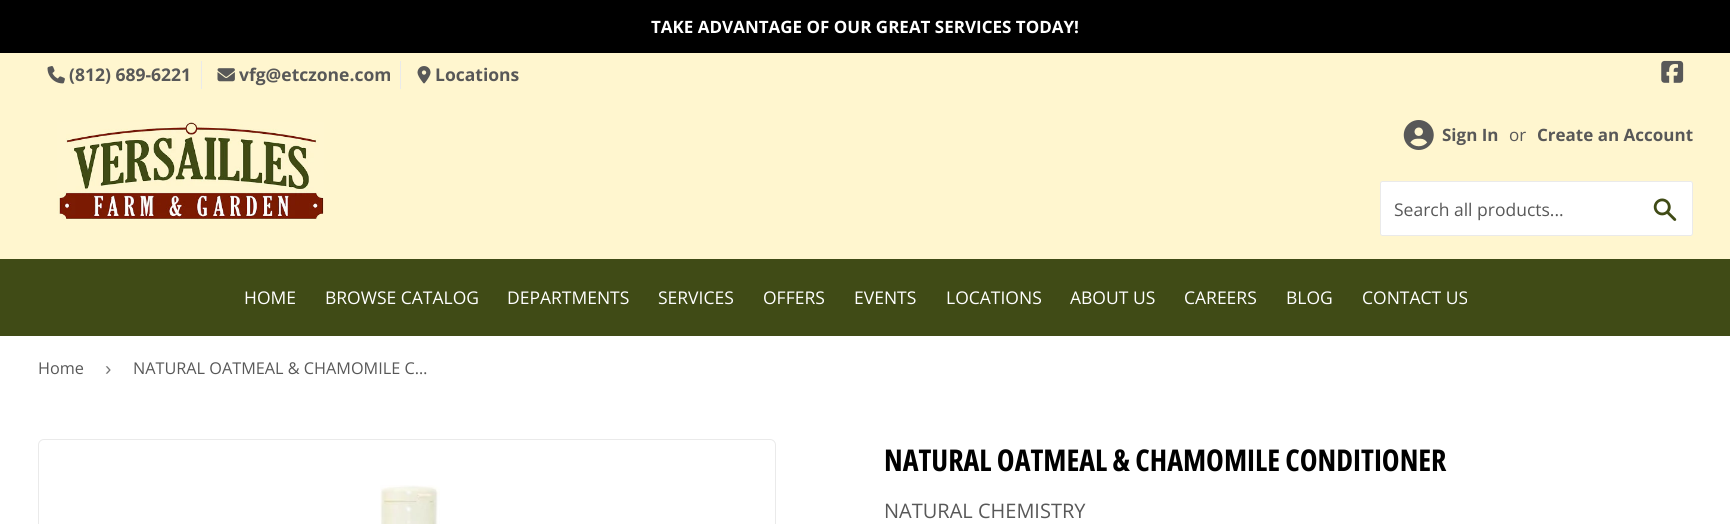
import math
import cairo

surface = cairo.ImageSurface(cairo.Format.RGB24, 1730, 524)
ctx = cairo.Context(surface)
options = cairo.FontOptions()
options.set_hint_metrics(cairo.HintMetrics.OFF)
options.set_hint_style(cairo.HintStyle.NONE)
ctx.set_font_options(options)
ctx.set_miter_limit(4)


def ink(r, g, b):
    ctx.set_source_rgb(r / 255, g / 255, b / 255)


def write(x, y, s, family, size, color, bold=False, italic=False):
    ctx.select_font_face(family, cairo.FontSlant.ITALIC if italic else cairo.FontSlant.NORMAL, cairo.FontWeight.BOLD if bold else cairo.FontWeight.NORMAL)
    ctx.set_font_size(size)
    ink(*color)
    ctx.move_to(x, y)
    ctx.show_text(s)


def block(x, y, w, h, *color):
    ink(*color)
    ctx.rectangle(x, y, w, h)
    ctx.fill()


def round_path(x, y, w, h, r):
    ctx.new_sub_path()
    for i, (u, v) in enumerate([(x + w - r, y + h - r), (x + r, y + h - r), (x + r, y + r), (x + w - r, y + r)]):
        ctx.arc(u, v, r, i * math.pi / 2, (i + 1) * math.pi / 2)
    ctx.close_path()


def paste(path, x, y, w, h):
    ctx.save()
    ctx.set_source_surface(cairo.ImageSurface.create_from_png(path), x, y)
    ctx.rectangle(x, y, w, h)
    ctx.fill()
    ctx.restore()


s1 = dict(family="Open Sans", size=17, color=(255, 255, 255), bold=True)
s2 = dict(family="Open Sans", size=17.5, color=(88, 88, 88), bold=True)
s3 = dict(family="Open Sans", size=17, color=(88, 88, 88), bold=True)
s4 = dict(family="Open Sans", size=17, color=(88, 88, 88))
s5 = dict(family="Open Sans", size=17.5, color=(88, 88, 88))
s6 = dict(family="Open Sans", size=17.5, color=(255, 255, 255))
s7 = dict(family="Open Sans", size=16.25, color=(88, 88, 88))
s8 = dict(family="Liberation Sans", size=19, color=(118, 118, 118))
s9 = dict(family="Open Sans Condensed", size=30, color=(0, 0, 0), bold=True)
s10 = dict(family="Open Sans", size=20, color=(88, 88, 88))

ink(255, 255, 255)
ctx.paint()
block(0, 0, 1730, 53, 0, 0, 0)
write(651, 33, "TAKE ADVANTAGE OF OUR GREAT SERVICES TODAY!", **s1)
block(0, 53, 1730, 206, 255, 246, 207)
block(201, 61, 1, 28, 234, 234, 234)
paste("pic1.png", 47, 66, 18, 18)
write(69, 81, "(812) 689-6221", **s2)
block(400, 61, 1, 28, 234, 234, 234)
paste("pic2.png", 217, 68, 18, 14)
write(239, 81, "vfg@etczone.com", **s2)
paste("pic3.png", 417, 66, 14, 18)
write(435, 81, "Locations", **s2)
paste("pic4.png", 1661, 60, 23, 23)
paste("pic5.png", 57, 122, 267, 98)
paste("pic6.png", 1403, 120, 31, 30)
write(1442, 141, "Sign In", **s3)
write(1509, 141, "or", **s4)
write(1537, 141, "Create an Account", **s3)
ink(255, 255, 255)
round_path(1380.5, 181.5, 312, 54, 2)
ctx.fill_preserve()
ink(234, 234, 234)
ctx.set_line_width(1)
ctx.stroke()
write(1394, 216, "Search all products...", **s5)
paste("pic7.png", 1653, 198, 24, 23)
block(0, 259, 1730, 77, 64, 75, 22)
write(244, 304, "HOME", **s6)
write(325, 304, "BROWSE CATALOG", **s6)
write(507, 304, "DEPARTMENTS", **s6)
write(658, 304, "SERVICES", **s6)
write(763, 304, "OFFERS", **s6)
write(854, 304, "EVENTS", **s6)
write(946, 304, "LOCATIONS", **s6)
write(1070, 304, "ABOUT US", **s6)
write(1184, 304, "CAREERS", **s6)
write(1286, 304, "BLOG", **s6)
write(1362, 304, "CONTACT US", **s6)
write(38, 374, "Home", **s7)
write(105, 375, "›", **s8)
write(133, 374, "NATURAL OATMEAL & CHAMOMILE C…", **s7)
round_path(38.5, 439.5, 737, 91, 5.5)
ink(234, 234, 234)
ctx.stroke()
paste("pic8.png", 380, 485, 60, 39)
write(884, 471, "NATURAL OATMEAL & CHAMOMILE CONDITIONER", **s9)
write(884, 518, "NATURAL CHEMISTRY", **s10)
surface.write_to_png("screenshot.png")
